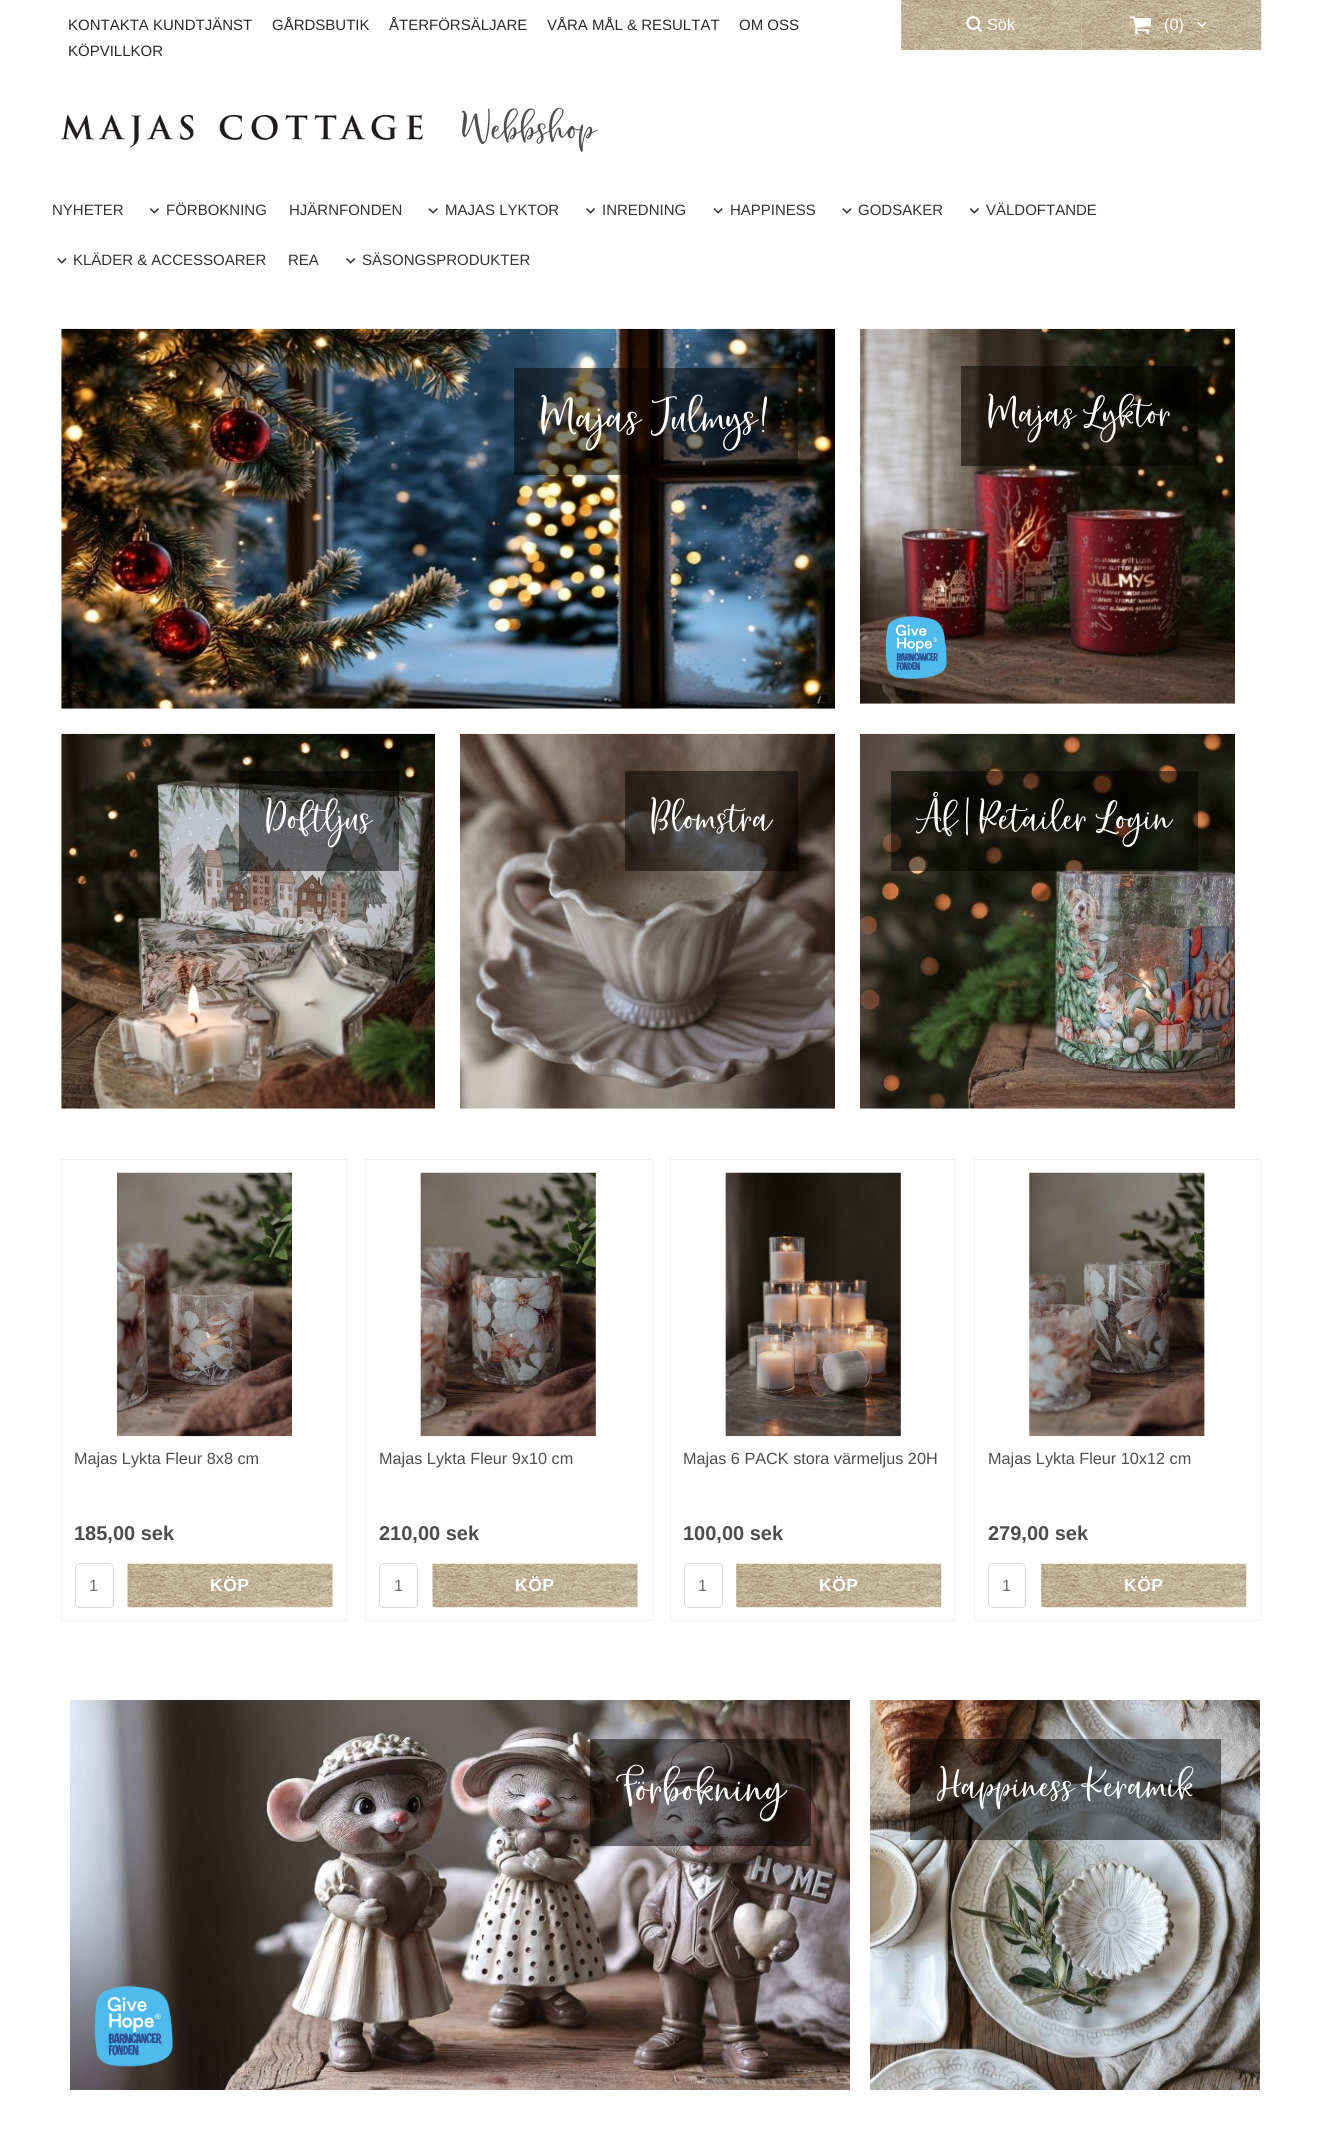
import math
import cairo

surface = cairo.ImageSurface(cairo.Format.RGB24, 1321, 2132)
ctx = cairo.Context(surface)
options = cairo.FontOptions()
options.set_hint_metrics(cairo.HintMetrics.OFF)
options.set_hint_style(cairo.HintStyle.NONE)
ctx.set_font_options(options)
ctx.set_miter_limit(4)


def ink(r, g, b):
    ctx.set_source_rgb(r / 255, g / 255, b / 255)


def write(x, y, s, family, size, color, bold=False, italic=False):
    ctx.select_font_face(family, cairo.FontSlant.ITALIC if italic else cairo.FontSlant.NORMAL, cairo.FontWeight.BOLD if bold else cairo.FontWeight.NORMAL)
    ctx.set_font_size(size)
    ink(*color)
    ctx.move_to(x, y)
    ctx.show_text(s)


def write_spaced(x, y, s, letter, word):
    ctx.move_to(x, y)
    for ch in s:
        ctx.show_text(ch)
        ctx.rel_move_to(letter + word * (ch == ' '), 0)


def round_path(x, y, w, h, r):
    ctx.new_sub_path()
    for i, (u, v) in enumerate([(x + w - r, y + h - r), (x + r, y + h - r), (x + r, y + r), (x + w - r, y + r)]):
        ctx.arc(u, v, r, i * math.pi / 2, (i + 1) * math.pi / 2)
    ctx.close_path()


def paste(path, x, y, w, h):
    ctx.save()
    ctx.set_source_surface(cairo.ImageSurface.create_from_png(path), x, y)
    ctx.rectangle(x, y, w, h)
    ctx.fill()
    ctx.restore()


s1 = dict(family="Liberation Sans", size=15, color=(42, 42, 42))
s2 = dict(family="Liberation Sans", size=16.25, color=(255, 255, 255))
s3 = dict(family="Liberation Sans", size=15, color=(51, 51, 51))
s4 = dict(family="Liberation Sans", size=16.25, color=(77, 77, 77))
s5 = dict(family="Liberation Sans", size=20, color=(77, 77, 77), bold=True)
s6 = dict(family="Liberation Sans", size=16.25, color=(108, 108, 108))

ink(255, 255, 255)
ctx.paint()
write(68, 30, "KONTAKTA KUNDTJÄNST", **s1)
write(272, 30, "GÅRDSBUTIK", **s1)
write(389, 30, "ÅTERFÖRSÄLJARE", **s1)
write(547, 30, "VÅRA MÅL & RESULTAT", **s1)
write(739, 30, "OM OSS", **s1)
write(68, 56, "KÖPVILLKOR", **s1)
paste("pic1.png", 901, 0, 181, 50)
paste("pic2.png", 966, 16, 17, 17)
write(987, 30, "Sök", **s2)
paste("pic3.png", 1081, 0, 181, 50)
paste("pic4.png", 1130, 16, 21, 19)
write(1164, 30, "(0)", **s2)
paste("pic5.png", 1197, 21, 10, 7)
paste("pic6.png", 61, 115, 362, 33)
paste("pic7.png", 461, 107, 137, 45)
write(52, 215, "NYHETER", **s3)
paste("pic8.png", 149, 208, 10, 6)
write(166, 215, "FÖRBOKNING", **s3)
write(289, 215, "HJÄRNFONDEN", **s3)
paste("pic9.png", 428, 208, 10, 6)
write(445, 215, "MAJAS LYKTOR", **s3)
paste("pic10.png", 586, 208, 10, 6)
write(602, 215, "INREDNING", **s3)
paste("pic9.png", 713, 208, 10, 6)
write(730, 215, "HAPPINESS", **s3)
paste("pic11.png", 842, 208, 10, 6)
write(858, 215, "GODSAKER", **s3)
paste("pic8.png", 969, 208, 10, 6)
write(986, 215, "VÄLDOFTANDE", **s3)
paste("pic11.png", 57, 258, 10, 6)
write(73, 265, "KLÄDER & ACCESSOARER", **s3)
write(288, 265, "REA", **s3)
paste("pic10.png", 346, 258, 10, 6)
write(362, 265, "SÄSONGSPRODUKTER", **s3)
paste("pic12.png", 61, 328, 774, 381)
ctx.set_source_rgba(0, 0, 0, 0.5)
ctx.rectangle(514, 368, 284, 107)
ctx.fill()
paste("pic13.png", 541, 394, 227, 57)
paste("pic14.png", 860, 328, 375, 376)
ctx.rectangle(961, 366, 237, 100)
ctx.fill()
paste("pic15.png", 988, 393, 182, 50)
paste("pic16.png", 885, 616, 62, 63)
paste("pic17.png", 61, 733, 374, 376)
ctx.rectangle(239, 771, 160, 100)
ctx.fill()
paste("pic18.png", 266, 797, 108, 51)
paste("pic19.png", 460, 733, 375, 376)
ctx.rectangle(625, 771, 173, 100)
ctx.fill()
paste("pic20.png", 651, 797, 123, 38)
paste("pic21.png", 860, 733, 375, 376)
ctx.rectangle(891, 771, 307, 100)
ctx.fill()
paste("pic22.png", 915, 791, 259, 56)
ctx.rectangle(61.5, 1159.5, 286, 461)
ink(239, 239, 239)
ctx.set_line_width(1)
ctx.stroke()
paste("pic23.png", 113, 1172, 180, 265)
write(74, 1464, "Majas Lykta Fleur 8x8 cm", **s4)
write(74, 1540, "185,00 sek", **s5)
round_path(75.5, 1563.5, 38, 44, 4.5)
ink(217, 217, 217)
ctx.stroke()
write(89, 1591, "1", **s6)
paste("pic24.png", 127, 1563, 206, 45)
ctx.select_font_face("Liberation Sans", cairo.FontSlant.NORMAL, cairo.FontWeight.BOLD)
ctx.set_font_size(17.5)
ink(255, 255, 255)
write_spaced(210, 1591, "KÖP", 0.5, 0)
ctx.rectangle(365.5, 1159.5, 287, 461)
ink(239, 239, 239)
ctx.stroke()
paste("pic25.png", 417, 1172, 179, 265)
write(379, 1464, "Majas Lykta Fleur 9x10 cm", **s4)
write(379, 1540, "210,00 sek", **s5)
round_path(379.5, 1563.5, 38, 44, 4.5)
ink(217, 217, 217)
ctx.stroke()
write(394, 1591, "1", **s6)
paste("pic24.png", 432, 1563, 206, 45)
ctx.select_font_face("Liberation Sans", cairo.FontSlant.NORMAL, cairo.FontWeight.BOLD)
ctx.set_font_size(17.5)
ink(255, 255, 255)
write_spaced(515, 1591, "KÖP", 0.5, 0)
ctx.rectangle(670.5, 1159.5, 285, 461)
ink(239, 239, 239)
ctx.stroke()
paste("pic26.png", 722, 1172, 179, 265)
write(683, 1464, "Majas 6 PACK stora värmeljus 20H", **s4)
write(683, 1540, "100,00 sek", **s5)
round_path(684.5, 1563.5, 38, 44, 4.5)
ink(217, 217, 217)
ctx.stroke()
write(698, 1591, "1", **s6)
paste("pic27.png", 736, 1563, 206, 45)
ctx.select_font_face("Liberation Sans", cairo.FontSlant.NORMAL, cairo.FontWeight.BOLD)
ctx.set_font_size(17.5)
ink(255, 255, 255)
write_spaced(819, 1591, "KÖP", 0.5, 0)
ctx.rectangle(974.5, 1159.5, 286, 461)
ink(239, 239, 239)
ctx.stroke()
paste("pic28.png", 1025, 1172, 180, 265)
write(988, 1464, "Majas Lykta Fleur 10x12 cm", **s4)
write(988, 1540, "279,00 sek", **s5)
round_path(988.5, 1563.5, 37, 44, 4.5)
ink(217, 217, 217)
ctx.stroke()
write(1002, 1591, "1", **s6)
paste("pic27.png", 1041, 1563, 206, 45)
ctx.select_font_face("Liberation Sans", cairo.FontSlant.NORMAL, cairo.FontWeight.BOLD)
ctx.set_font_size(17.5)
ink(255, 255, 255)
write_spaced(1124, 1591, "KÖP", 0.5, 0)
paste("pic29.png", 70, 1700, 780, 390)
ctx.set_source_rgba(0, 0, 0, 0.5)
ctx.rectangle(590, 1739, 221, 107)
ctx.fill()
paste("pic30.png", 616, 1764, 172, 58)
paste("pic31.png", 94, 1986, 79, 81)
paste("pic32.png", 870, 1700, 390, 390)
ctx.rectangle(910, 1739, 311, 101)
ctx.fill()
paste("pic33.png", 936, 1765, 258, 45)
surface.write_to_png("screenshot.png")
